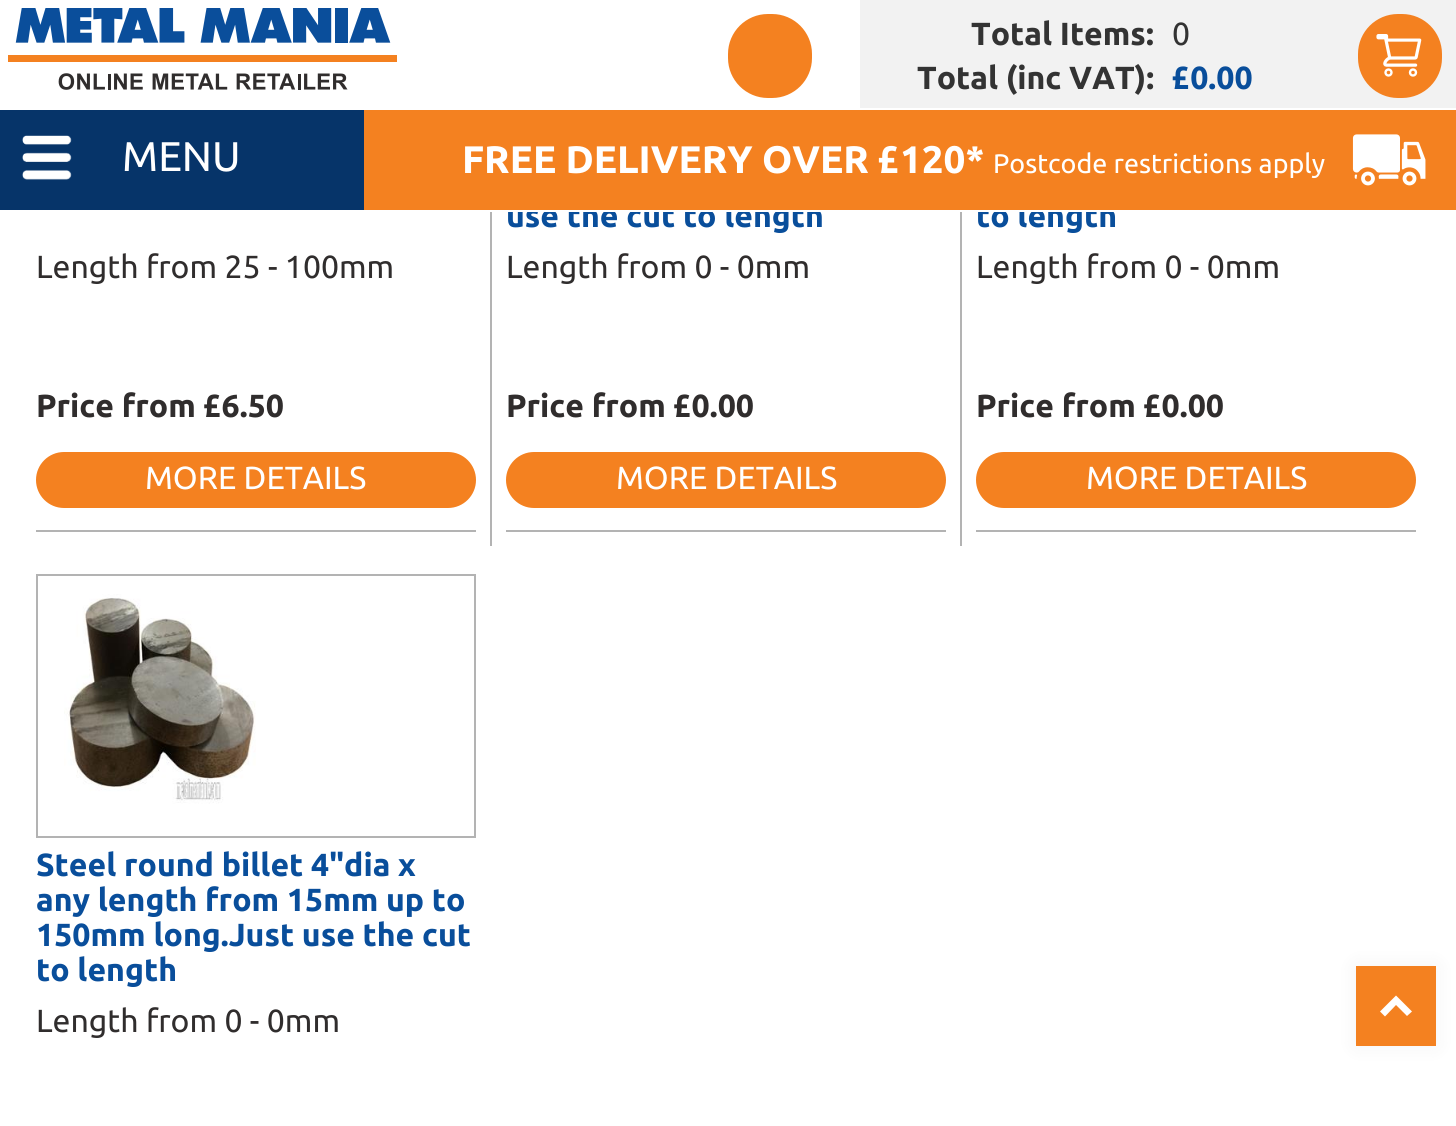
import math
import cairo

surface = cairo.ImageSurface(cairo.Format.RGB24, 1456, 1126)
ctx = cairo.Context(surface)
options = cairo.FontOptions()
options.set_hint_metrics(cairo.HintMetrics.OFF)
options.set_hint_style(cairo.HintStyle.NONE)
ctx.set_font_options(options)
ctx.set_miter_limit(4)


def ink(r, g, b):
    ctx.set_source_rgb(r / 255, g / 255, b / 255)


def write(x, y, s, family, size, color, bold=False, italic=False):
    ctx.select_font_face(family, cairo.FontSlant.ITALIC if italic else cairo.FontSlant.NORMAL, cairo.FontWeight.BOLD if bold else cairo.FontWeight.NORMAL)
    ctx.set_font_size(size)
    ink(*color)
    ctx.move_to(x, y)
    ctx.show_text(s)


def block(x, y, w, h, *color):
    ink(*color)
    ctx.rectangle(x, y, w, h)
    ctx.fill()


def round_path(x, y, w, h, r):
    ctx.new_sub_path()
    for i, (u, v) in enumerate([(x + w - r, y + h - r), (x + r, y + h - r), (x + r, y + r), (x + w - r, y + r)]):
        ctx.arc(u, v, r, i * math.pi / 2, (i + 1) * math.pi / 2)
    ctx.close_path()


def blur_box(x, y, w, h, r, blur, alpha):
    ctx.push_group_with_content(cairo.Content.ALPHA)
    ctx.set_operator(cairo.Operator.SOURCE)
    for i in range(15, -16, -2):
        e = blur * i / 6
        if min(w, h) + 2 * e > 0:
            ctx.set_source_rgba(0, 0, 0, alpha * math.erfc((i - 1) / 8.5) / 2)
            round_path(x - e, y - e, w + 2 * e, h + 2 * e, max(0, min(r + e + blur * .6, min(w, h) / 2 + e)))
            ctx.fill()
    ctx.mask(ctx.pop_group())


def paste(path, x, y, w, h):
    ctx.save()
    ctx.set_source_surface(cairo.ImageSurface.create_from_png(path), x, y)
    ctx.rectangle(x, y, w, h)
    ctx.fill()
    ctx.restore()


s1 = dict(family="Ubuntu", size=32, color=(51, 51, 51), bold=True)
s2 = dict(family="Ubuntu", size=32, color=(51, 51, 51))
s3 = dict(family="Ubuntu", size=32, color=(9, 78, 155), bold=True)
s4 = dict(family="Ubuntu", size=41.5, color=(255, 255, 255))
s5 = dict(family="Ubuntu", size=38.4, color=(255, 255, 255), bold=True)
s6 = dict(family="Ubuntu", size=26.9, color=(255, 255, 255))
s7 = dict(family="Ubuntu", size=32, color=(48, 45, 45))
s8 = dict(family="Ubuntu", size=32, color=(48, 45, 45), bold=True)
s9 = dict(family="Ubuntu", size=32, color=(255, 255, 255))

ink(255, 255, 255)
ctx.paint()
paste("pic1.png", 8, 8, 389, 82)
ink(244, 129, 32)
round_path(729, 15, 82, 82, 39)
ctx.fill_preserve()
ctx.stroke()
block(860, 0, 596, 108, 242, 242, 242)
write(971, 45, "Total Items:", **s1)
write(1172, 45, "0", **s2)
write(917, 89, "Total (inc VAT):", **s1)
write(1172, 89, "£0.00", **s3)
ink(244, 129, 32)
round_path(1359, 15, 82, 82, 39)
ctx.fill_preserve()
ctx.stroke()
paste("pic2.png", 1376, 34, 46, 43)
block(0, 110, 364, 100, 6, 52, 105)
paste("pic3.png", 22, 135, 50, 45)
write(122, 171, "MENU", **s4)
write(506, 227, "use the cut to length", **s3)
write(976, 227, "to length", **s3)
block(364, 110, 1092, 100, 244, 129, 32)
block(508, 210, 606, 2, 255, 255, 255)
paste("pic4.png", 1352, 134, 74, 52)
write(462, 173, "FREE DELIVERY OVER £120*", **s5)
write(993, 173, "Postcode restrictions apply", **s6)
block(490, 212, 2, 334, 179, 179, 179)
write(36, 278, "Length from 25 - 100mm", **s7)
write(36, 417, "Price from £6.50", **s8)
ink(244, 129, 32)
round_path(37, 453, 438, 54, 27)
ctx.fill_preserve()
ctx.stroke()
write(145, 489, "MORE DETAILS", **s9)
block(36, 530, 440, 2, 179, 179, 179)
block(960, 212, 2, 334, 179, 179, 179)
write(506, 278, "Length from 0 - 0mm", **s7)
write(506, 417, "Price from £0.00", **s8)
ink(244, 129, 32)
round_path(507, 453, 438, 54, 27)
ctx.fill_preserve()
ctx.stroke()
write(616, 489, "MORE DETAILS", **s9)
block(506, 530, 440, 2, 179, 179, 179)
write(976, 278, "Length from 0 - 0mm", **s7)
write(976, 417, "Price from £0.00", **s8)
ink(244, 129, 32)
round_path(977, 453, 438, 54, 27)
ctx.fill_preserve()
ctx.stroke()
write(1086, 489, "MORE DETAILS", **s9)
block(976, 530, 440, 2, 179, 179, 179)
ctx.rectangle(37, 575, 438, 262)
ctx.stroke()
paste("pic5.png", 64, 594, 192, 210)
write(36, 876, "Steel round billet 4\"dia x", **s3)
write(36, 911, "any length from 15mm up to", **s3)
write(36, 946, "150mm long.Just use the cut", **s3)
write(36, 981, "to length", **s3)
write(36, 1032, "Length from 0 - 0mm", **s7)
ink(0, 0, 0)
blur_box(1356, 966, 80, 80, 0, 10, 0.05)
block(1356, 966, 80, 80, 244, 129, 32)
ink(255, 255, 255)
ctx.new_path()
ctx.move_to(1396, 995.5)
ctx.line_to(1412, 1011.5)
ctx.line_to(1407, 1016)
ctx.line_to(1396, 1005)
ctx.line_to(1385, 1016.5)
ctx.line_to(1380, 1011.5)
ctx.close_path()
ctx.fill()
surface.write_to_png("screenshot.png")
